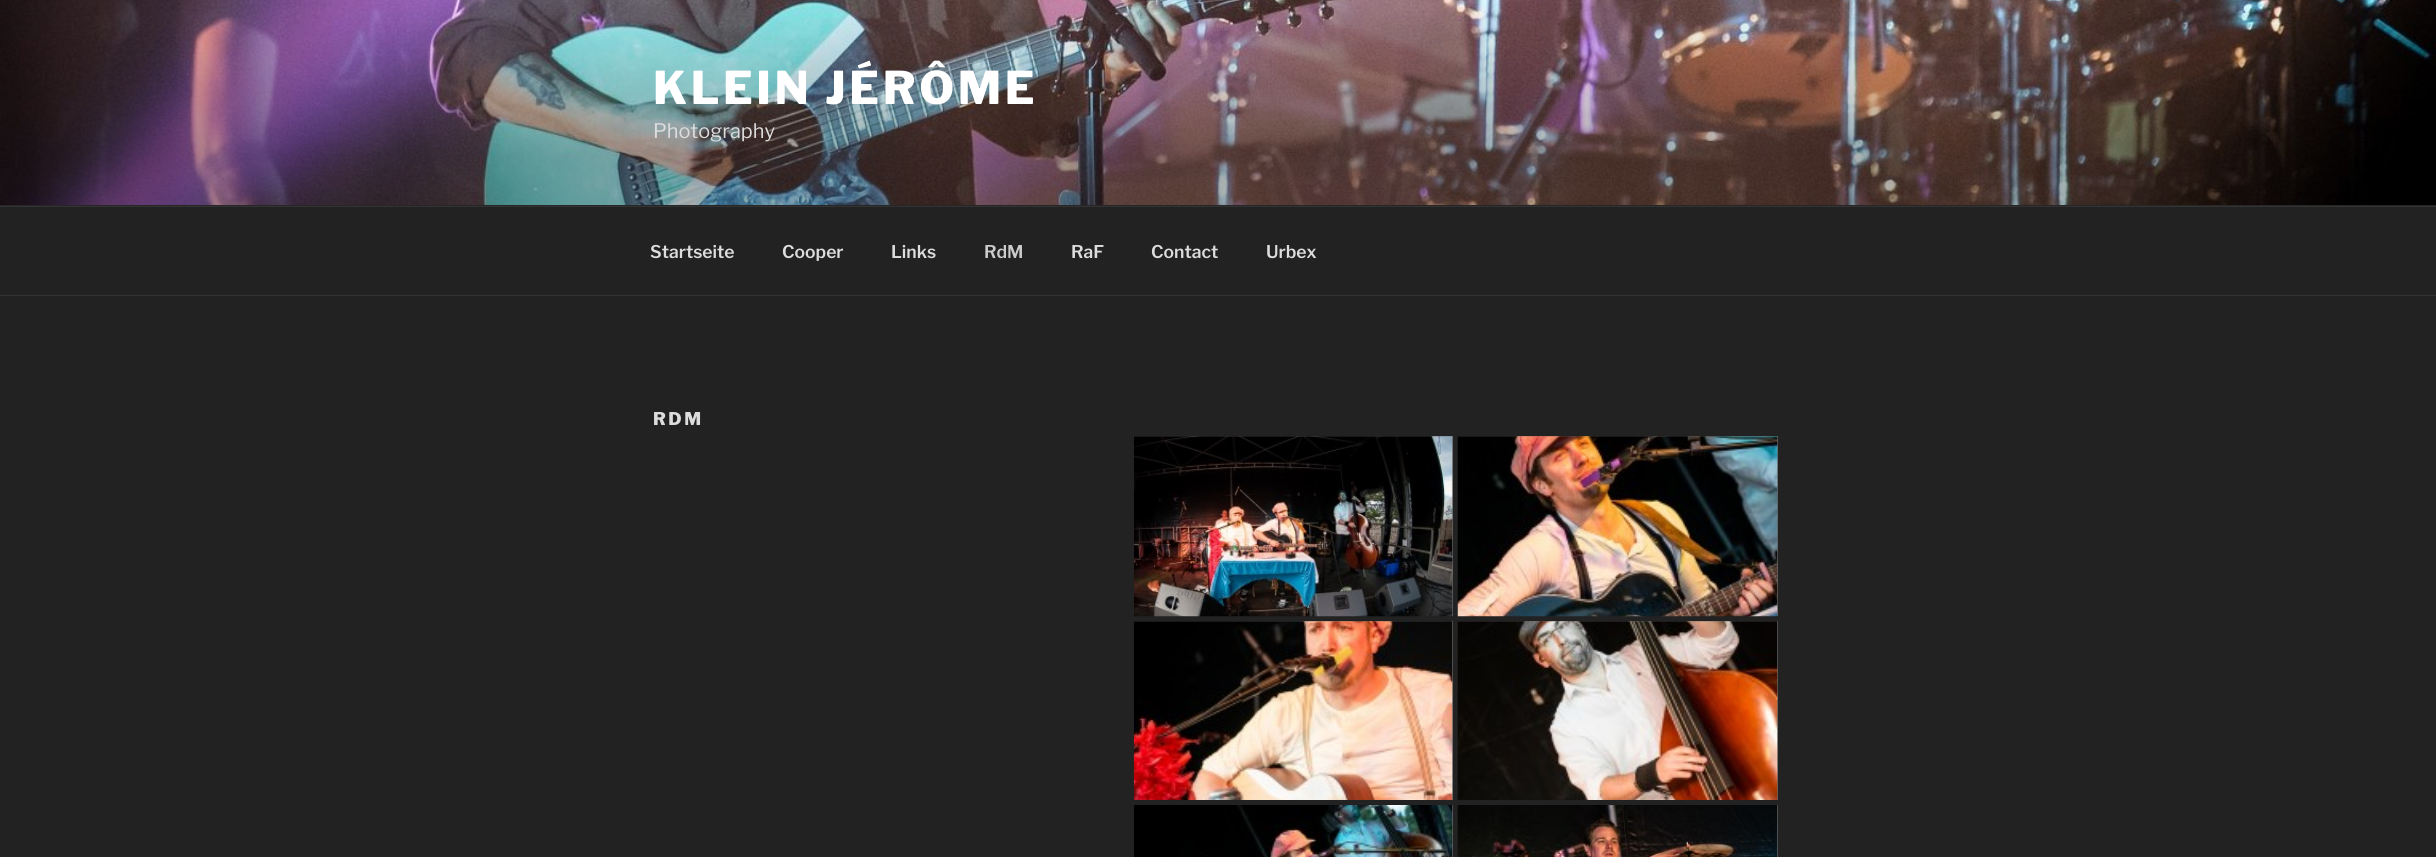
import math
import cairo

surface = cairo.ImageSurface(cairo.Format.RGB24, 2436, 857)
ctx = cairo.Context(surface)
options = cairo.FontOptions()
options.set_hint_metrics(cairo.HintMetrics.OFF)
options.set_hint_style(cairo.HintStyle.NONE)
ctx.set_font_options(options)
ctx.set_miter_limit(4)


def ink(r, g, b):
    ctx.set_source_rgb(r / 255, g / 255, b / 255)


def write(x, y, s, family, size, color, bold=False, italic=False):
    ctx.select_font_face(family, cairo.FontSlant.ITALIC if italic else cairo.FontSlant.NORMAL, cairo.FontWeight.BOLD if bold else cairo.FontWeight.NORMAL)
    ctx.set_font_size(size)
    ink(*color)
    ctx.move_to(x, y)
    ctx.show_text(s)


def write_spaced(x, y, s, letter, word):
    ctx.move_to(x, y)
    for ch in s:
        ctx.show_text(ch)
        ctx.rel_move_to(letter + word * (ch == ' '), 0)


def block(x, y, w, h, *color):
    ink(*color)
    ctx.rectangle(x, y, w, h)
    ctx.fill()


def paste(path, x, y, w, h):
    ctx.save()
    ctx.set_source_surface(cairo.ImageSurface.create_from_png(path), x, y)
    ctx.rectangle(x, y, w, h)
    ctx.fill()
    ctx.restore()


s1 = dict(family="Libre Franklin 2 Thin", size=20, color=(221, 221, 221))
s2 = dict(family="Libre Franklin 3 Thin", size=17.5, color=(221, 221, 221))
s3 = dict(family="Libre Franklin 3 Thin", size=17.5, color=(204, 204, 204))

ink(34, 34, 34)
ctx.paint()
block(0, 205, 2436, 1, 38, 38, 38)
paste("pic1.png", 0, 0, 2436, 205)
ctx.select_font_face("Libre Franklin Thin")
ctx.set_font_size(45)
ink(255, 255, 255)
write_spaced(653, 104, "KLEIN JÉRÔME", 3.6, 0)
write(653, 138, "Photography", **s1)
block(0, 206, 2436, 1, 51, 51, 51)
block(0, 295, 2436, 1, 51, 51, 51)
write(650, 258, "Startseite", **s2)
write(782, 258, "Cooper", **s2)
write(891, 258, "Links", **s2)
write(984, 258, "RdM", **s3)
write(1071, 258, "RaF", **s2)
write(1151, 258, "Contact", **s2)
write(1266, 258, "Urbex", **s2)
ctx.select_font_face("Libre Franklin Thin")
write_spaced(653, 425, "RDM", 2.5, 0)
block(1134, 436, 319, 180, 100, 100, 100)
paste("pic2.png", 1134, 436, 319, 181)
block(1458, 436, 320, 180, 100, 100, 100)
paste("pic3.png", 1457, 436, 321, 181)
block(1134, 621, 319, 179, 100, 100, 100)
paste("pic4.png", 1133, 621, 320, 179)
block(1458, 621, 320, 179, 100, 100, 100)
paste("pic5.png", 1457, 621, 321, 179)
block(1452, 805, 1, 52, 100, 100, 100)
paste("pic6.png", 1134, 805, 319, 52)
block(1777, 805, 1, 52, 100, 100, 100)
paste("pic7.png", 1457, 805, 321, 52)
surface.write_to_png("screenshot.png")
